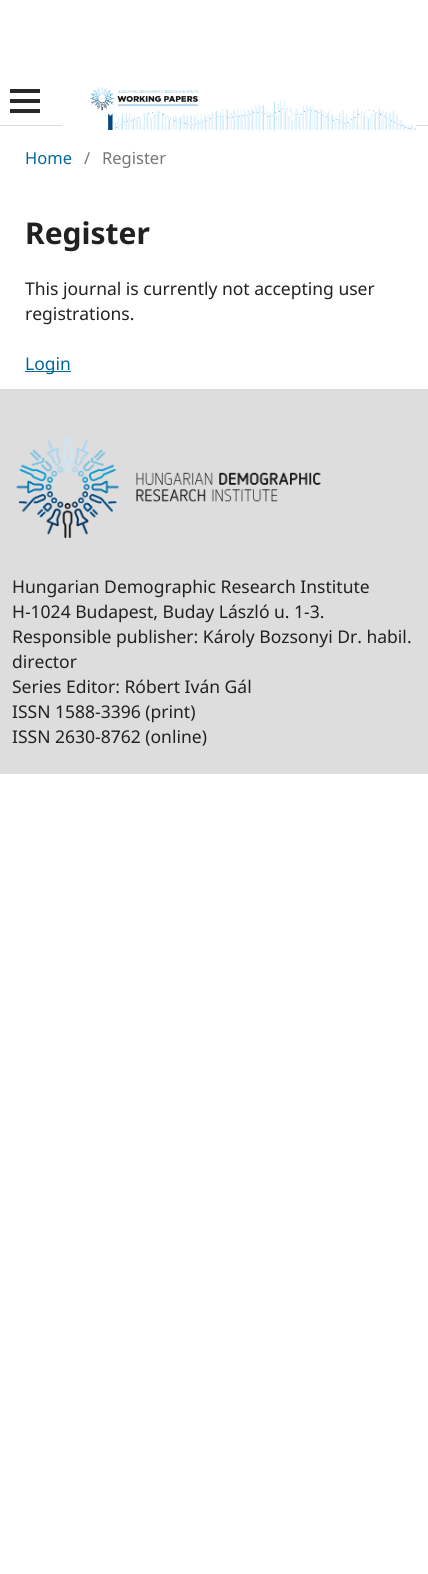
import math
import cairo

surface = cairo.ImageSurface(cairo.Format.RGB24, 428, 1574)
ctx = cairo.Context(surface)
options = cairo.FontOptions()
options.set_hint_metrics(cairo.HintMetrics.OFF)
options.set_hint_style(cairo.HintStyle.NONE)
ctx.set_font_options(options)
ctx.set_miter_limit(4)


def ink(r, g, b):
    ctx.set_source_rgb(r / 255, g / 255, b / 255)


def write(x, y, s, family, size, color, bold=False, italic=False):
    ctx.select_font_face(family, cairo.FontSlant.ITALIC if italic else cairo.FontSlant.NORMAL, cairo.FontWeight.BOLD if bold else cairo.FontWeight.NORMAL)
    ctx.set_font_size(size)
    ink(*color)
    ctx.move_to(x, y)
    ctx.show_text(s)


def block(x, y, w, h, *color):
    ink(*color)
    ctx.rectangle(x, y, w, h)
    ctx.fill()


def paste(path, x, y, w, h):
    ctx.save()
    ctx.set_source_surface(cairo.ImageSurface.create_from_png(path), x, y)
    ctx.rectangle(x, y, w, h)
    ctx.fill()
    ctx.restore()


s1 = dict(family="Noto Sans", size=16.5, color=(0, 103, 152))
s2 = dict(family="Noto Sans", size=16.5, color=(117, 117, 117))
s3 = dict(family="Noto Sans", size=30, color=(33, 33, 33), bold=True)
s4 = dict(family="Noto Sans", size=17.5, color=(33, 33, 33))
s5 = dict(family="Noto Sans", size=17.5, color=(0, 103, 152))

ink(255, 255, 255)
ctx.paint()
block(0, 125, 428, 1, 221, 221, 221)
block(10, 109, 30, 4, 41, 41, 41)
block(10, 89, 30, 4, 41, 41, 41)
block(10, 99, 30, 4, 41, 41, 41)
paste("pic1.png", 62, 87, 354, 43)
write(25, 164, "Home", **s1)
write(84, 164, "/", **s2)
write(102, 164, "Register", **s2)
write(25, 244, "Register", **s3)
write(25, 295, "This journal is currently not accepting user", **s4)
write(25, 320, "registrations.", **s4)
block(25, 371, 46, 1, 0, 103, 152)
write(25, 370, "Login", **s5)
block(0, 389, 428, 385, 221, 221, 221)
paste("pic2.png", 16, 436, 305, 102)
write(12, 593, "Hungarian Demographic Research Institute", **s4)
write(12, 618, "H-1024 Budapest, Buday László u. 1-3.", **s4)
write(12, 643, "Responsible publisher: Károly Bozsonyi Dr. habil.", **s4)
write(12, 668, "director", **s4)
write(12, 693, "Series Editor: Róbert Iván Gál", **s4)
write(12, 718, "ISSN 1588-3396 (print)", **s4)
write(12, 743, "ISSN 2630-8762 (online)", **s4)
surface.write_to_png("screenshot.png")
